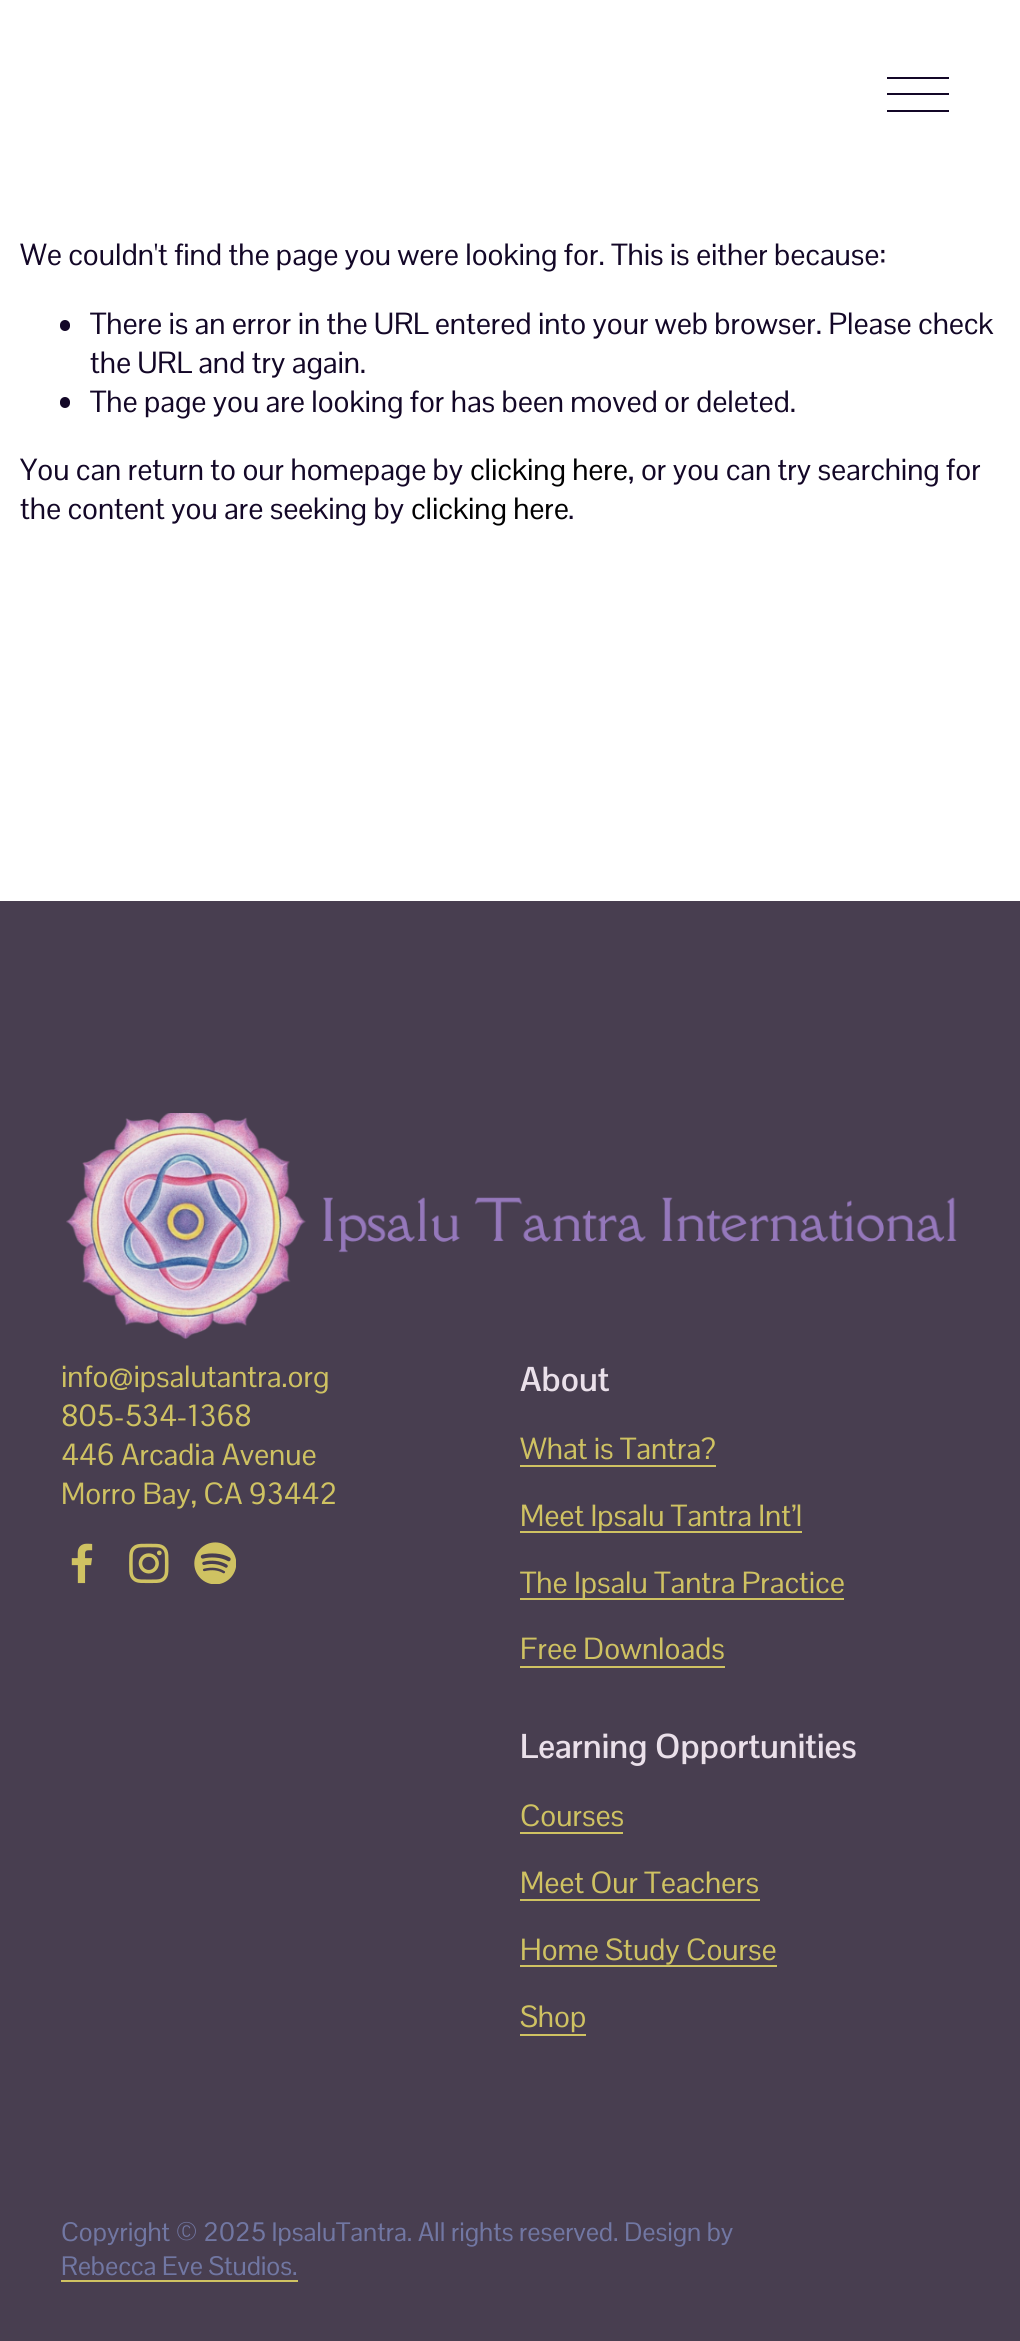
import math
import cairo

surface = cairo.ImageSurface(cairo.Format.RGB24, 1020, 2341)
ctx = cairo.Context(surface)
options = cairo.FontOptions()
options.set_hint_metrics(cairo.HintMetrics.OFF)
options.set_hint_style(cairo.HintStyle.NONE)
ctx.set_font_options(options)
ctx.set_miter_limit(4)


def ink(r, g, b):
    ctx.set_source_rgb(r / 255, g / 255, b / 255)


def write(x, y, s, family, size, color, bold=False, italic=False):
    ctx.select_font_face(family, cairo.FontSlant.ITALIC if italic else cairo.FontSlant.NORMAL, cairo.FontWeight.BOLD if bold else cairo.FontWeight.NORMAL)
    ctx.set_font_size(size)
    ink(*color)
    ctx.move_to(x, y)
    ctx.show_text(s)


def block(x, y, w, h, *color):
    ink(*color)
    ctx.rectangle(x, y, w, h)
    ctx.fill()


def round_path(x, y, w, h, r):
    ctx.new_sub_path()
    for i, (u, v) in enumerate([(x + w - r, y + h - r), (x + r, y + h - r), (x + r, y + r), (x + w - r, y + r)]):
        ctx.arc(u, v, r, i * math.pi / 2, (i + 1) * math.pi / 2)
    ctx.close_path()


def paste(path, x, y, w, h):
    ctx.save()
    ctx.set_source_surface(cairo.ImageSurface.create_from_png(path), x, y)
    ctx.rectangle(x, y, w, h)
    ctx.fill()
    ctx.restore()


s1 = dict(family="Pontano Sans", size=29.9, color=(19, 7, 39))
s2 = dict(family="Pontano Sans", size=29.9, color=(0, 0, 0))
s3 = dict(family="Pontano Sans", size=29.9, color=(207, 194, 98))
s4 = dict(family="Pontano Sans", size=33.75, color=(234, 224, 234), bold=True)
s5 = dict(family="Pontano Sans", size=26.1, color=(113, 119, 163))

ink(255, 255, 255)
ctx.paint()
block(887, 77, 62, 2, 19, 7, 39)
block(887, 93, 62, 2, 19, 7, 39)
block(887, 110, 62, 2, 19, 7, 39)
write(20, 265, "We couldn't find the page you were looking for. This is either because:", **s1)
round_path(60, 320, 10, 11, 5)
ctx.fill()
write(90, 334, "There is an error in the URL entered into your web browser. Please check", **s1)
write(90, 373, "the URL and try again.", **s1)
round_path(60, 397, 10, 11, 5)
ctx.fill()
write(90, 412, "The page you are looking for has been moved or deleted.", **s1)
write(20, 480, "You can return to our homepage by", **s1)
write(470, 480, "clicking here", **s2)
write(628, 480, ", or you can try searching for", **s1)
write(20, 519, "the content you are seeking by", **s1)
write(411, 519, "clicking here", **s2)
write(568, 519, ".", **s1)
block(0, 901, 1020, 1440, 72, 62, 80)
paste("pic1.png", 66, 1113, 891, 226)
write(61, 1387, "info@ipsalutantra.org", **s3)
write(61, 1426, "805-534-1368", **s3)
write(61, 1465, "446 Arcadia Avenue", **s3)
write(61, 1504, "Morro Bay, CA 93442", **s3)
write(520, 1391, "About", **s4)
write(520, 1459, "What is Tantra?", **s3)
block(520, 1465, 196, 2, 207, 194, 98)
block(520, 1531, 282, 2, 207, 194, 98)
write(520, 1526, "Meet Ipsalu Tantra Int’l", **s3)
block(520, 1598, 324, 2, 207, 194, 98)
write(520, 1593, "The Ipsalu Tantra Practice", **s3)
write(520, 1659, "Free Downloads", **s3)
block(520, 1666, 205, 2, 207, 194, 98)
paste("pic2.png", 71, 1543, 22, 41)
paste("pic3.png", 129, 1543, 40, 41)
paste("pic4.png", 194, 1542, 42, 42)
write(520, 1758, "Learning Opportunities", **s4)
write(520, 1826, "Courses", **s3)
block(520, 1832, 103, 2, 207, 194, 98)
write(520, 1893, "Meet Our Teachers", **s3)
block(520, 1899, 240, 2, 207, 194, 98)
write(520, 1960, "Home Study Course", **s3)
block(520, 1965, 257, 2, 207, 194, 98)
write(520, 2027, "Shop", **s3)
block(520, 2034, 66, 2, 207, 194, 98)
write(61, 2241, "Copyright © 2025 IpsaluTantra. All rights reserved. Design by", **s5)
write(61, 2275, "Rebecca Eve Studios.", **s5)
block(61, 2280, 237, 2, 207, 194, 98)
surface.write_to_png("screenshot.png")
